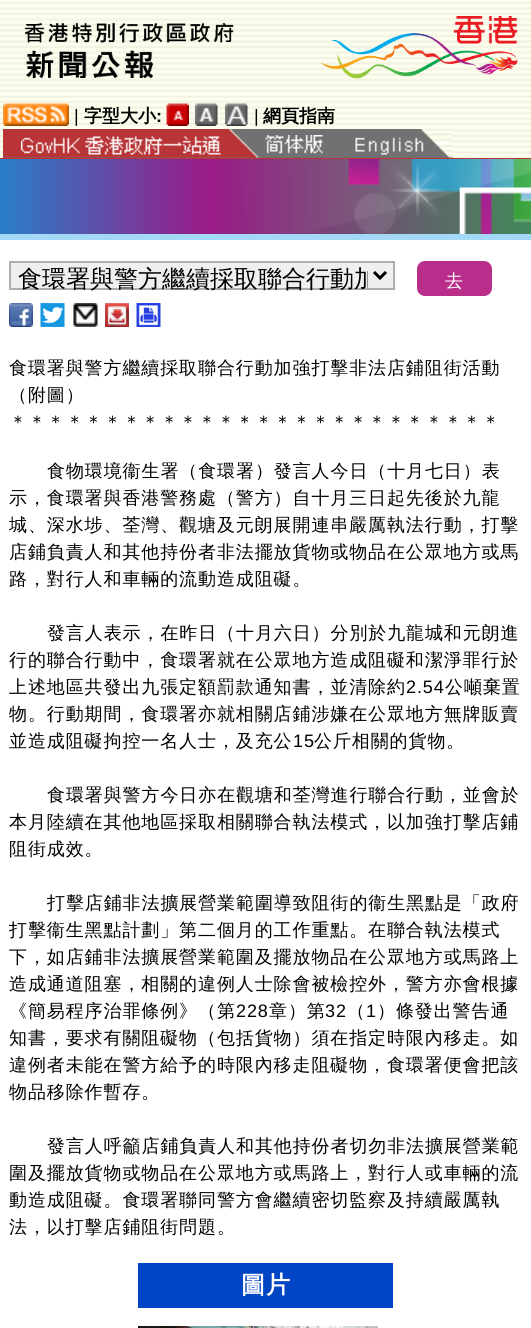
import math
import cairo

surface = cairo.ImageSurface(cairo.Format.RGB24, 531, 1328)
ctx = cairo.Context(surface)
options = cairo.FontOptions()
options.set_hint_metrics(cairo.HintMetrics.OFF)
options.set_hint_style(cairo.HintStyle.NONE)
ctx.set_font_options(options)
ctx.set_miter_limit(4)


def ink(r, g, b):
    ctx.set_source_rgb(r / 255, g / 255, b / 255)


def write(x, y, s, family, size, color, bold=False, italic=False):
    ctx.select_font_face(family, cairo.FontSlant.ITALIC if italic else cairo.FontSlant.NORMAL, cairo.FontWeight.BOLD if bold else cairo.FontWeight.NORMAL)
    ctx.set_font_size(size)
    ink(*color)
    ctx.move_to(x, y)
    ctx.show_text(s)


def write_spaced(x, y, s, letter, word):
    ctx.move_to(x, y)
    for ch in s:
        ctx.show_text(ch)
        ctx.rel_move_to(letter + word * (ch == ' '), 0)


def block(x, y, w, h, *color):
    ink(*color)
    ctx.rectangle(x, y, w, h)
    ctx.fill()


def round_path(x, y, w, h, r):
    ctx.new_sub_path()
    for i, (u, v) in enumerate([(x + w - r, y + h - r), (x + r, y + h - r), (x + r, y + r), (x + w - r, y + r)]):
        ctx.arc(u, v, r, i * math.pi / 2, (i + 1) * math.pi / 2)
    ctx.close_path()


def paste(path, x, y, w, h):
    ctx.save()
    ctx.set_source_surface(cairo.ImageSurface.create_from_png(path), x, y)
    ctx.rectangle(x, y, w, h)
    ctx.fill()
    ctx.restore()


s1 = dict(family="Liberation Sans", size=18, color=(0, 0, 0))
s2 = dict(family="WenQuanYi Zen Hei", size=18, color=(0, 0, 0), bold=True)
s3 = dict(family="Liberation Sans", size=18, color=(0, 0, 0), bold=True)
s4 = dict(family="WenQuanYi Zen Hei Medium", size=24, color=(0, 0, 0))
s5 = dict(family="WenQuanYi Zen Hei Medium", size=18, color=(255, 255, 255))

ink(255, 255, 255)
ctx.paint()
paste("pic1.png", 0, 0, 531, 158)
block(0, 158, 531, 1, 187, 51, 51)
paste("pic2.png", 24, 22, 210, 56)
paste("pic3.png", 321, 16, 197, 63)
paste("pic4.png", 3, 103, 66, 23)
write(74, 122, "|", **s1)
write(84, 122, "字型大小", **s2)
write(156, 122, ":", **s3)
paste("pic5.png", 166, 103, 23, 23)
paste("pic6.png", 195, 103, 23, 23)
paste("pic7.png", 225, 103, 23, 23)
write(254, 122, "|", **s1)
write(263, 122, "網頁指南", **s2)
block(3, 129, 450, 29, 113, 113, 113)
paste("pic8.png", 3, 129, 256, 29)
paste("pic9.png", 21, 136, 200, 19)
paste("pic10.png", 265, 135, 58, 19)
paste("pic11.png", 421, 129, 32, 29)
paste("pic12.png", 355, 137, 69, 18)
paste("pic13.png", 0, 159, 531, 75)
block(0, 234, 531, 6, 163, 216, 247)
ink(239, 239, 239)
ctx.rectangle(10, 262, 384, 27)
ctx.fill_preserve()
ink(171, 173, 179)
ctx.stroke()
ctx.new_path()
ctx.move_to(374, 272)
ctx.line_to(380, 278)
ctx.line_to(386, 272)
ink(0, 0, 0)
ctx.set_line_width(3)
ctx.stroke()
ctx.save()
ctx.rectangle(18, 264, 350, 29)
ctx.clip()
write(18, 287, "食環署與警方繼續採取聯合行動加", **s4)
ctx.restore()
ink(184, 46, 138)
round_path(417, 261, 75, 35, 8)
ctx.fill()
write(445, 287, "去", **s5)
paste("pic14.png", 9, 303, 24, 24)
paste("pic15.png", 40, 303, 25, 24)
paste("pic16.png", 73, 303, 25, 24)
paste("pic17.png", 105, 303, 24, 24)
paste("pic18.png", 136, 303, 25, 24)
ink(0, 0, 0)
write_spaced(9, 374, "食環署與警方繼續採取聯合行動加強打擊非法店鋪阻街活動", 0.9, 0)
write_spaced(9, 401, "（附圖）", 0.9, 0)
write_spaced(9, 428, "＊＊＊＊＊＊＊＊＊＊＊＊＊＊＊＊＊＊＊＊＊＊", 0.9, 0)
write_spaced(425, 428, "＊＊＊＊", 0.9, 0)
write_spaced(47, 477, "食物環境衞生署（食環署）發言人今日（十月七日）表", 0.9, 0)
write_spaced(9, 504, "示，食環署與香港警務處（警方）自十月三日起先後於九龍", 0.9, 0)
write_spaced(9, 531, "城、深水埗、荃灣、觀塘及元朗展開連串嚴厲執法行動，打擊", 0.9, 0)
write_spaced(9, 558, "店鋪負責人和其他持份者非法擺放貨物或物品在公眾地方或馬", 0.9, 0)
write_spaced(9, 585, "路，對行人和車輛的流動造成阻礙。", 0.9, 0)
write_spaced(47, 639, "發言人表示，在昨日（十月六日）分別於九龍城和元朗進", 0.9, 0)
write_spaced(9, 666, "行的聯合行動中，食環署就在公眾地方造成阻礙和潔淨罪行於", 0.9, 0)
write_spaced(9, 693, "上述地區共發出九張定額罰款通知書，並清除約", 0.9, 0)
ctx.select_font_face("Liberation Sans")
write_spaced(406, 693, "2.54", 0.9, 0)
ctx.select_font_face("WenQuanYi Zen Hei Medium")
write_spaced(445, 693, "公噸棄置", 0.9, 0)
write_spaced(9, 720, "物。行動期間，食環署亦就相關店鋪涉嫌在公眾地方無牌販賣", 0.9, 0)
write_spaced(9, 747, "並造成阻礙拘控一名人士，及充公", 0.9, 0)
ctx.select_font_face("Liberation Sans")
write_spaced(293, 747, "15", 0.9, 0)
ctx.select_font_face("WenQuanYi Zen Hei Medium")
write_spaced(314, 747, "公斤相關的貨物。", 0.9, 0)
write_spaced(47, 801, "食環署與警方今日亦在觀塘和荃灣進行聯合行動，並會於", 0.9, 0)
write_spaced(9, 828, "本月陸續在其他地區採取相關聯合執法模式，以加強打擊店鋪", 0.9, 0)
write_spaced(9, 855, "阻街成效。", 0.9, 0)
write_spaced(47, 909, "打擊店鋪非法擴展營業範圍導致阻街的衞生黑點是「政府", 0.9, 0)
write_spaced(9, 936, "打擊衞生黑點計劃」第二個月的工作重點。在聯合執法模式", 0.9, 0)
write_spaced(9, 963, "下，如店鋪非法擴展營業範圍及擺放物品在公眾地方或馬路上", 0.9, 0)
write_spaced(9, 990, "造成通道阻塞，相關的違例人士除會被檢控外，警方亦會根據", 0.9, 0)
write_spaced(9, 1017, "《簡易程序治罪條例》（第", 0.9, 0)
ctx.select_font_face("Liberation Sans")
write_spaced(236, 1017, "228", 0.9, 0)
ctx.select_font_face("WenQuanYi Zen Hei Medium")
write_spaced(269, 1017, "章）第", 0.9, 0)
ctx.select_font_face("Liberation Sans")
write_spaced(325, 1017, "32", 0.9, 0)
ctx.select_font_face("WenQuanYi Zen Hei Medium")
write_spaced(347, 1017, "（", 0.9, 0)
ctx.select_font_face("Liberation Sans")
write_spaced(366, 1017, "1", 0.9, 0)
ctx.select_font_face("WenQuanYi Zen Hei Medium")
write_spaced(377, 1017, "）條發出警告通", 0.9, 0)
write_spaced(9, 1044, "知書，要求有關阻礙物（包括貨物）須在指定時限內移走。如", 0.9, 0)
write_spaced(9, 1071, "違例者未能在警方給予的時限內移走阻礙物，食環署便會把該", 0.9, 0)
write_spaced(9, 1098, "物品移除作暫存。", 0.9, 0)
write_spaced(47, 1152, "發言人呼籲店鋪負責人和其他持份者切勿非法擴展營業範", 0.9, 0)
write_spaced(9, 1179, "圍及擺放貨物或物品在公眾地方或馬路上，對行人或車輛的流", 0.9, 0)
write_spaced(9, 1206, "動造成阻礙。食環署聯同警方會繼續密切監察及持續嚴厲執", 0.9, 0)
write_spaced(9, 1233, "法，以打擊店鋪阻街問題。", 0.9, 0)
block(138, 1263, 255, 45, 0, 70, 196)
ctx.select_font_face("WenQuanYi Zen Hei", cairo.FontSlant.NORMAL, cairo.FontWeight.BOLD)
ctx.set_font_size(24)
ink(255, 255, 255)
write_spaced(241, 1293, "圖片", 0.9, 0)
paste("pic19.png", 138, 1326, 240, 2)
surface.write_to_png("screenshot.png")
